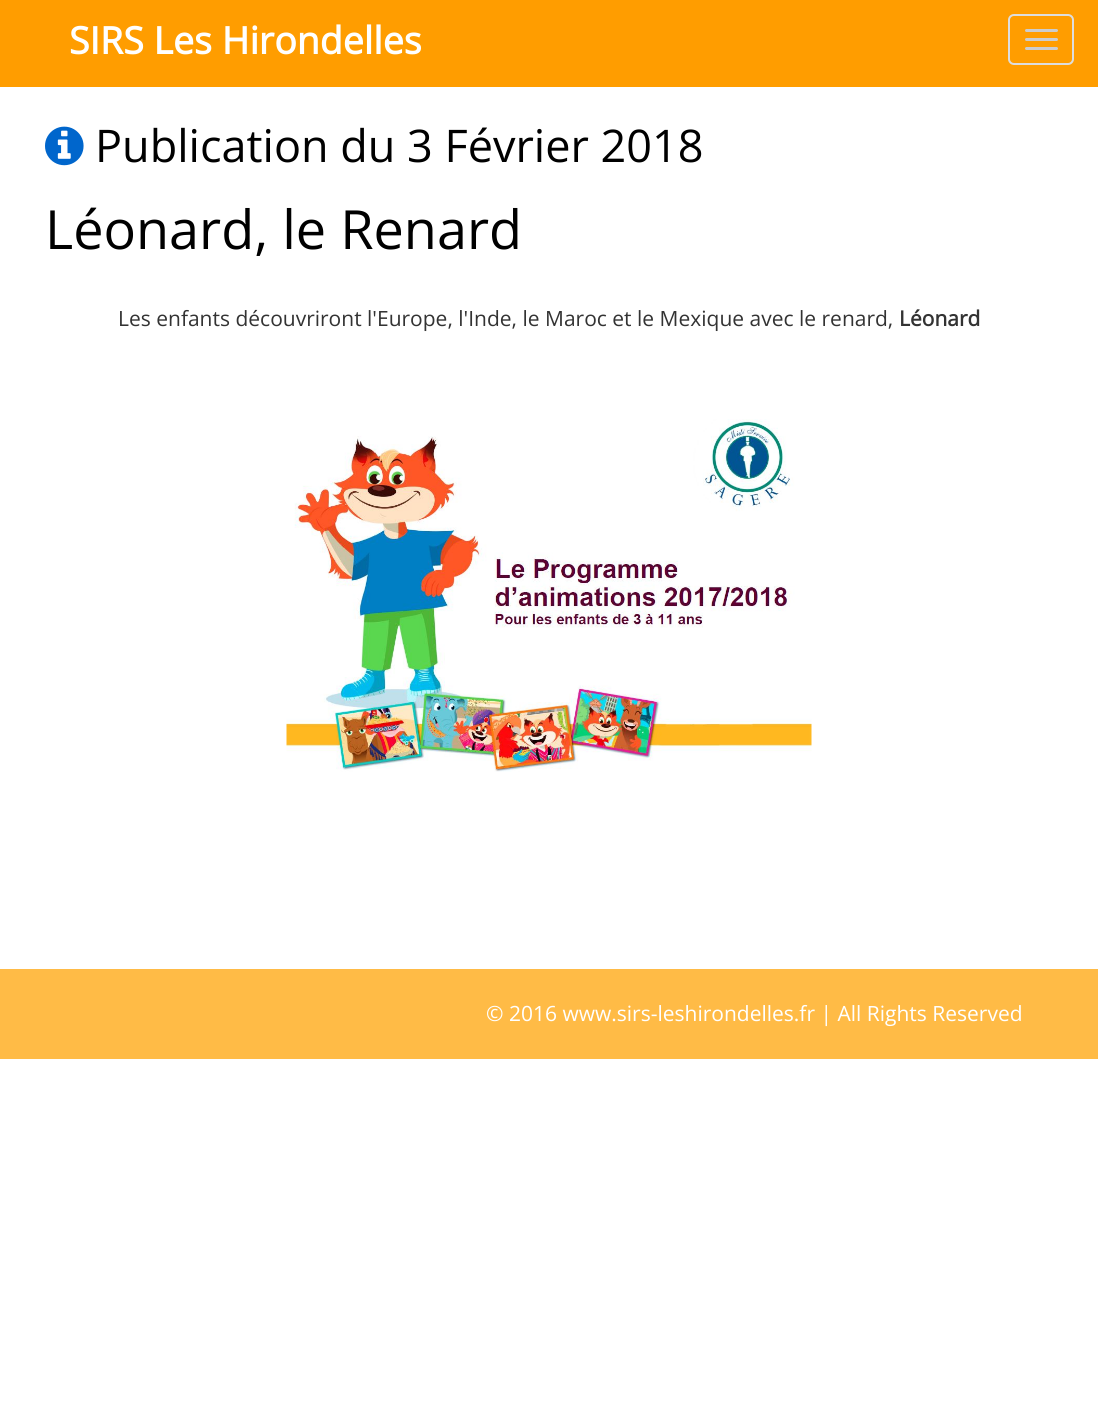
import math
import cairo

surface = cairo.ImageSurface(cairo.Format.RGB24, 1098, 1426)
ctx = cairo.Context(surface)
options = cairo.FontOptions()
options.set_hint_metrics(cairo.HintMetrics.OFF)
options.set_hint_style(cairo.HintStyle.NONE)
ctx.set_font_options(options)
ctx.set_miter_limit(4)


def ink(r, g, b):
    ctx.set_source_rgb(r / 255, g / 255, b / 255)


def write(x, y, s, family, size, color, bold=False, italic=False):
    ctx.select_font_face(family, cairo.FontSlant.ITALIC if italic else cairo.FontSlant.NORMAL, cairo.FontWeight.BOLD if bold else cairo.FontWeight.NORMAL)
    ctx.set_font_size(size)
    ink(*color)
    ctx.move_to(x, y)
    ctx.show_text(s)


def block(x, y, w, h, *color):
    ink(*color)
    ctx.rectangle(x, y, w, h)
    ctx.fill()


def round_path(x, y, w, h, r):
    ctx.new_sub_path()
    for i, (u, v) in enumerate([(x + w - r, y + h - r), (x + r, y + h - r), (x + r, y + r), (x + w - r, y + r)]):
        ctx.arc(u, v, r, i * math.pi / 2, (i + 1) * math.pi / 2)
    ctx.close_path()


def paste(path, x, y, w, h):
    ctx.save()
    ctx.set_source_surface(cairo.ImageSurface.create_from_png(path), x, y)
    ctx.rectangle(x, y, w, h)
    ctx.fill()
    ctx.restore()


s1 = dict(family="Open Sans", size=37.5, color=(255, 255, 255), bold=True)
s2 = dict(family="Open Sans", size=45, color=(0, 0, 0))
s3 = dict(family="Open Sans", size=54, color=(0, 0, 0))
s4 = dict(family="Open Sans", size=21, color=(51, 51, 51))
s5 = dict(family="Open Sans", size=21, color=(51, 51, 51), bold=True)
s6 = dict(family="Open Sans", size=21, color=(255, 255, 255))

ink(255, 255, 255)
ctx.paint()
block(0, 0, 1098, 87, 255, 157, 0)
write(69, 54, "SIRS Les Hirondelles", **s1)
round_path(1009, 15, 64, 49, 5)
ink(221, 221, 221)
ctx.stroke()
ink(204, 204, 204)
round_path(1025, 29, 33, 3, 1.5)
ctx.fill()
round_path(1025, 38, 33, 3, 1.5)
ctx.fill()
round_path(1025, 47, 33, 3, 1.5)
ctx.fill()
paste("pic1.png", 45, 126, 39, 40)
write(95, 162, "Publication du 3 Février 2018", **s2)
write(45, 249, "Léonard, le Renard", **s3)
write(118, 326, "Les enfants découvriront l'Europe, l'Inde, le Maroc et le Mexique avec le renard,", **s4)
write(899, 326, "Léonard", **s5)
paste("pic2.png", 286, 419, 526, 353)
block(0, 969, 1098, 90, 255, 187, 70)
write(486, 1021, "© 2016 www.sirs-leshirondelles.fr | All Rights Reserved", **s6)
surface.write_to_png("screenshot.png")
